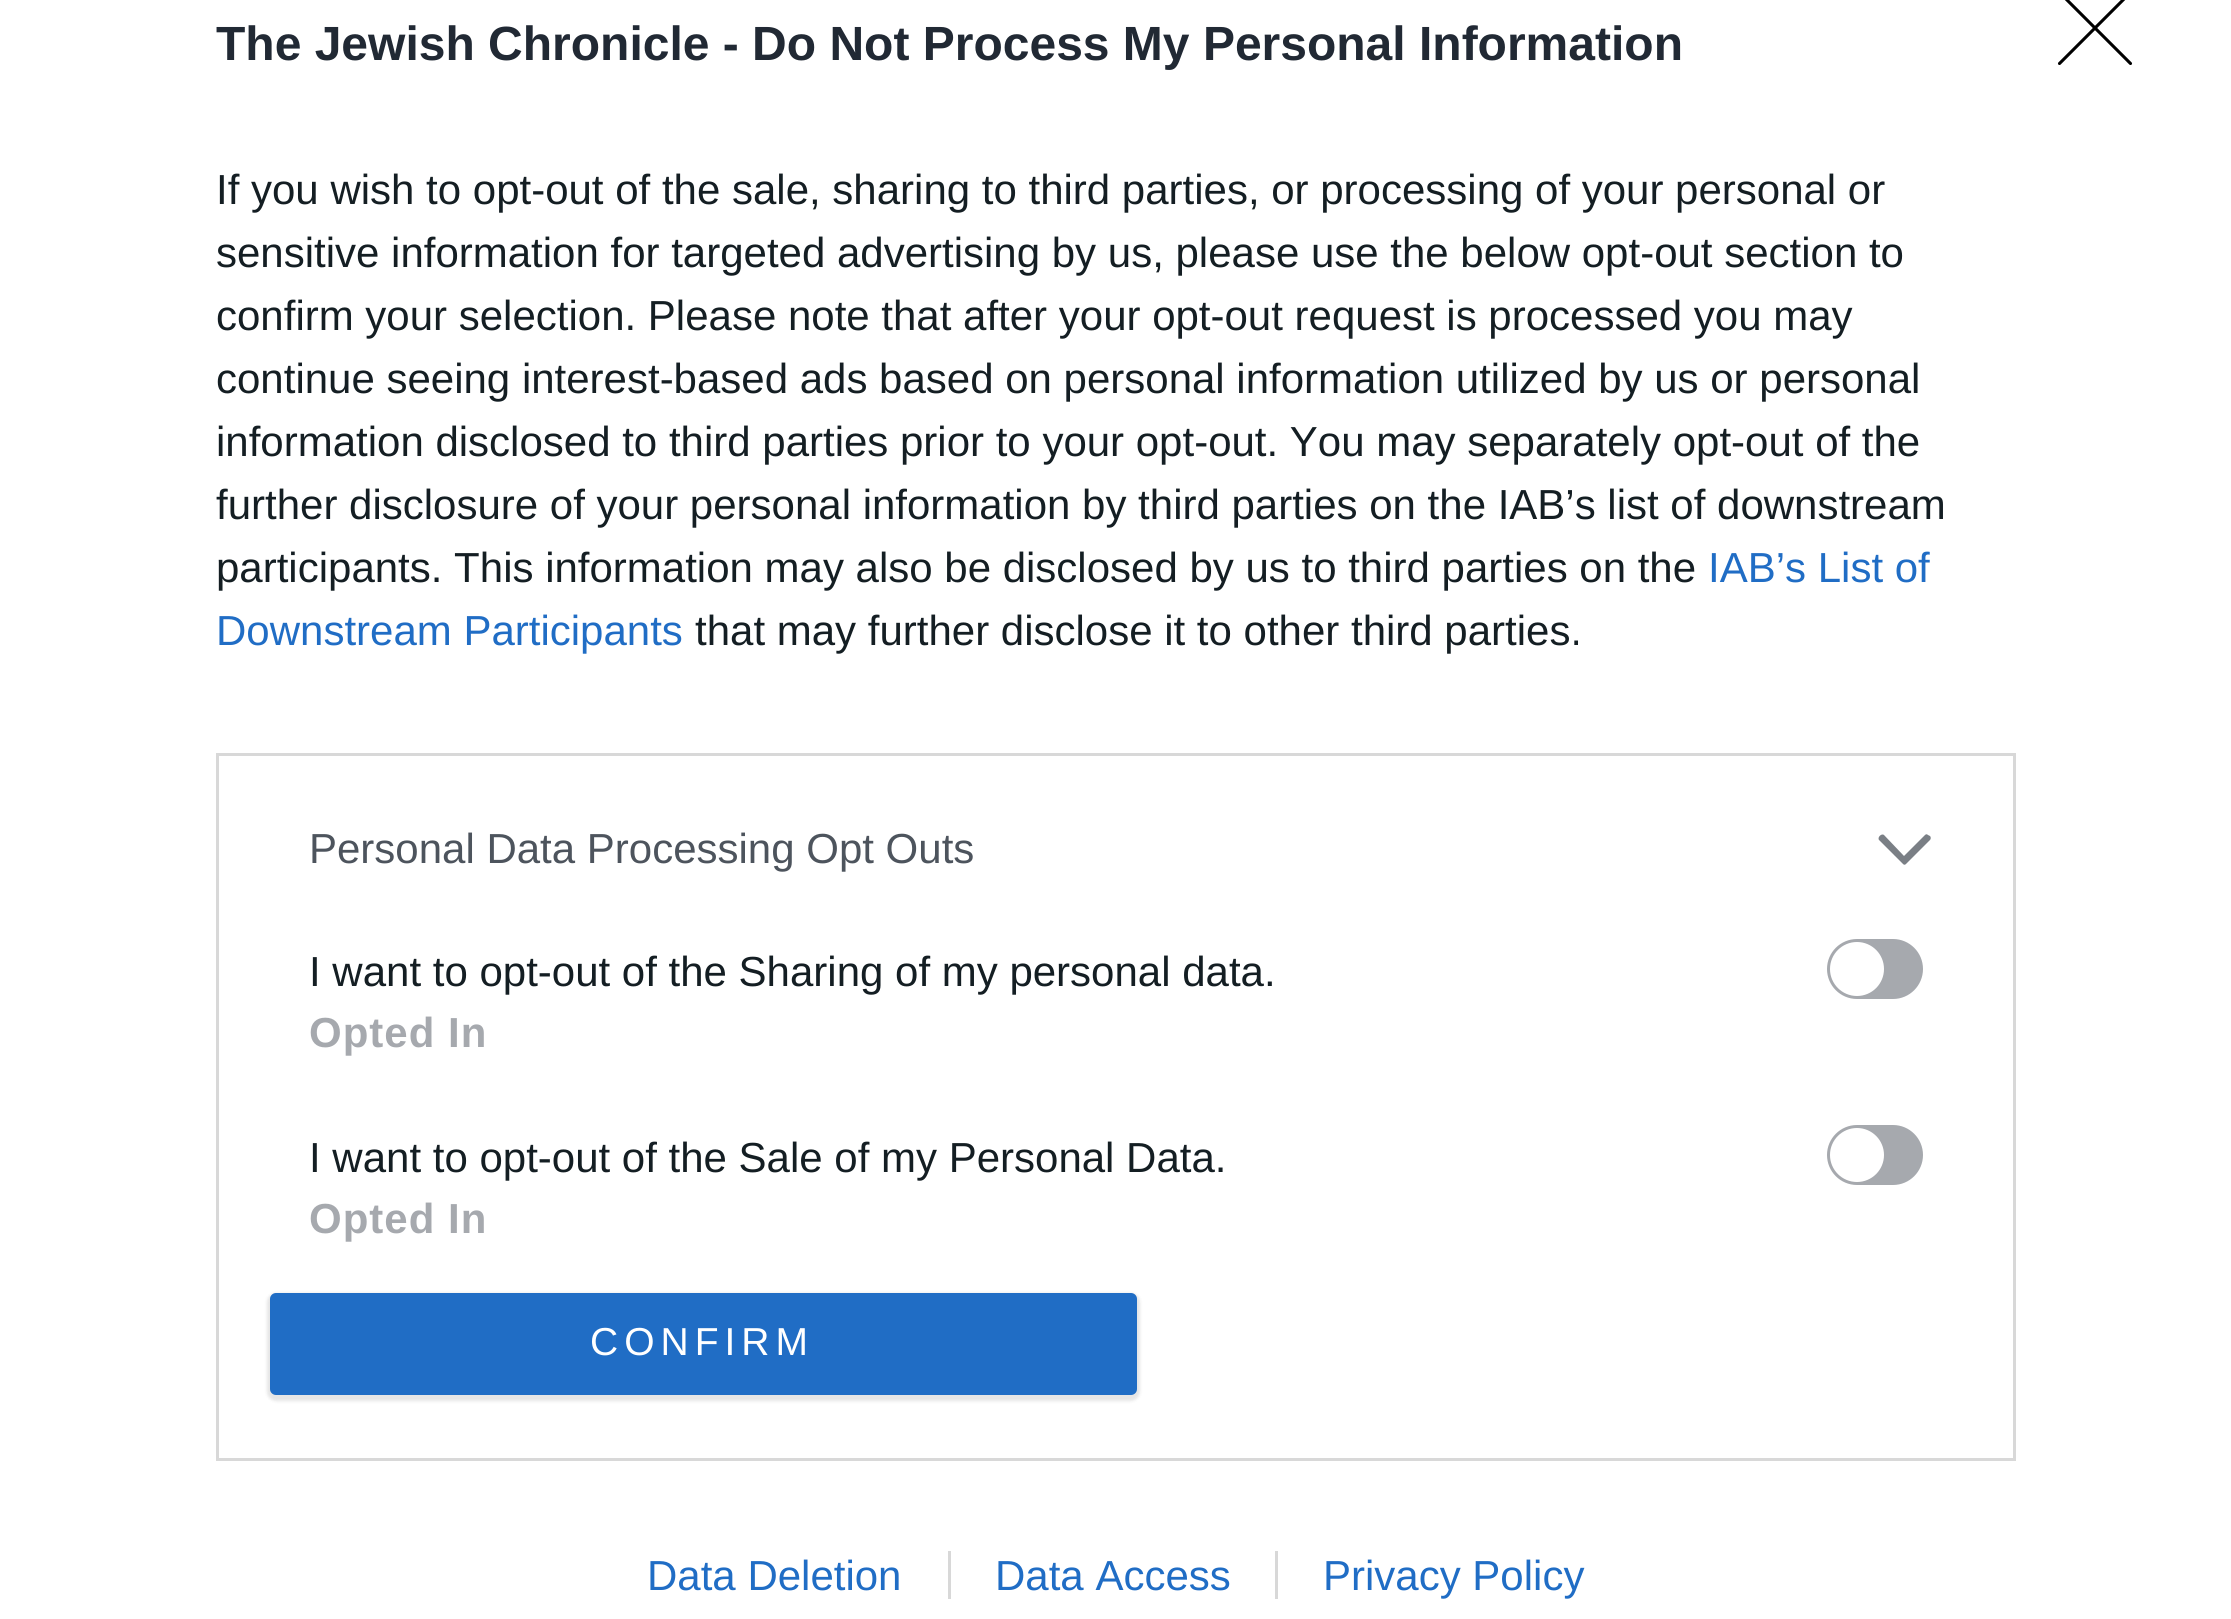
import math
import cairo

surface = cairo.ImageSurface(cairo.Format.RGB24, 2231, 1619)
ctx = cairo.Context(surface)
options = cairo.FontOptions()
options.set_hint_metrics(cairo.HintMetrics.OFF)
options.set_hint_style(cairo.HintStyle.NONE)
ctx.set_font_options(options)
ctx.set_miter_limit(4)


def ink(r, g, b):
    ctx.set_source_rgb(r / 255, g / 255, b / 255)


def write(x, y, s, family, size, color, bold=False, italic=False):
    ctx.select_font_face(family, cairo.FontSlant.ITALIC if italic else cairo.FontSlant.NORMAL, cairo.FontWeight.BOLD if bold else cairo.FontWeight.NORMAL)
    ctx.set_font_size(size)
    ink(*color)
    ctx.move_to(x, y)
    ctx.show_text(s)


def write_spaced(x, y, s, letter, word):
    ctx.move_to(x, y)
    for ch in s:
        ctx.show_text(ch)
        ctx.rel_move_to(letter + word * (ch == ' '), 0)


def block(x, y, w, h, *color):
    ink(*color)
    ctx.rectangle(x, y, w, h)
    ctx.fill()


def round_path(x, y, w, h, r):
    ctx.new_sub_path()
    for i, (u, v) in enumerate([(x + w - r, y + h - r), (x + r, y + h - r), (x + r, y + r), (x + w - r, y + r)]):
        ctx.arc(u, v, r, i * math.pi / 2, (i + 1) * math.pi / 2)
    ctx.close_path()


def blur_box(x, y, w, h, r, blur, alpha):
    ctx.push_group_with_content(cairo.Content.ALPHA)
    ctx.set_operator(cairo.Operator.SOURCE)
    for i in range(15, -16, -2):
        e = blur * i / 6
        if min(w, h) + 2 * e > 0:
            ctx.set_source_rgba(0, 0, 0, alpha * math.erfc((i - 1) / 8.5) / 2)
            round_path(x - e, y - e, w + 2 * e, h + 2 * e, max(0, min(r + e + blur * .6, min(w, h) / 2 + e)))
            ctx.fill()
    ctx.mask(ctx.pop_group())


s1 = dict(family="Liberation Sans", size=48, color=(33, 41, 52), bold=True)
s2 = dict(family="Liberation Sans", size=42, color=(20, 30, 35))
s3 = dict(family="Liberation Sans", size=42, color=(32, 109, 197))
s4 = dict(family="Liberation Sans", size=42, color=(77, 84, 93))

ink(255, 255, 255)
ctx.paint()
write(216, 60, "The Jewish Chronicle - Do Not Process My Personal Information", **s1)
write(216, 204, "If you wish to opt-out of the sale, sharing to third parties, or processing of your personal or", **s2)
write(216, 267, "sensitive information for targeted advertising by us, please use the below opt-out section to", **s2)
write(216, 330, "confirm your selection. Please note that after your opt-out request is processed you may", **s2)
write(216, 393, "continue seeing interest-based ads based on personal information utilized by us or personal", **s2)
write(216, 456, "information disclosed to third parties prior to your opt-out. You may separately opt-out of the", **s2)
write(216, 519, "further disclosure of your personal information by third parties on the IAB’s list of downstream", **s2)
write(216, 582, "participants. This information may also be disclosed by us to third parties on the", **s2)
write(1708, 582, "IAB’s List of", **s3)
write(216, 645, "Downstream Participants", **s3)
write(695, 645, "that may further disclose it to other third parties.", **s2)
ctx.rectangle(217.5, 754.5, 1797, 705)
ink(216, 216, 216)
ctx.set_line_width(3)
ctx.stroke()
write(309, 863, "Personal Data Processing Opt Outs", **s4)
ink(122, 127, 133)
ctx.new_path()
ctx.move_to(1903, 864)
ctx.line_to(1879, 840)
ctx.curve_to(1877, 837, 1882, 833, 1884, 835)
ctx.line_to(1904, 856)
ctx.line_to(1925, 835)
ctx.curve_to(1926, 834, 1927, 834, 1928, 835)
ctx.line_to(1930, 836)
ctx.curve_to(1931, 837, 1931, 839, 1930, 840)
ctx.line_to(1906, 864)
ctx.curve_to(1905, 865, 1904, 865, 1903, 864)
ctx.close_path()
ctx.fill()
write(309, 986, "I want to opt-out of the Sharing of my personal data.", **s2)
ink(166, 169, 174)
round_path(1828.5, 940.5, 93, 57, 28.5)
ctx.fill_preserve()
ctx.stroke()
ink(255, 255, 255)
ctx.arc(1857, 969, 27, 0, 2 * math.pi)
ctx.fill()
ctx.select_font_face("Liberation Sans", cairo.FontSlant.NORMAL, cairo.FontWeight.BOLD)
ink(166, 169, 174)
write_spaced(309, 1047, "Opted In", 1, 0)
write(309, 1172, "I want to opt-out of the Sale of my Personal Data.", **s2)
ink(166, 169, 174)
round_path(1828.5, 1126.5, 93, 57, 28.5)
ctx.fill_preserve()
ctx.stroke()
ink(255, 255, 255)
ctx.arc(1857, 1155, 27, 0, 2 * math.pi)
ctx.fill()
ctx.select_font_face("Liberation Sans", cairo.FontSlant.NORMAL, cairo.FontWeight.BOLD)
ink(166, 169, 174)
write_spaced(309, 1233, "Opted In", 1, 0)
ink(0, 0, 0)
blur_box(267, 1293, 873, 108, 9, 1.5, 0.1)
ink(32, 109, 197)
round_path(270, 1293, 867, 102, 6)
ctx.fill()
ctx.select_font_face("Liberation Sans")
ctx.set_font_size(39)
ink(255, 255, 255)
write_spaced(590, 1355, "CONFIRM", 6, 0)
ctx.new_path()
ctx.move_to(2059.5, -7.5)
ctx.line_to(2130.5, 63.5)
ctx.move_to(2130.5, -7.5)
ctx.line_to(2059.5, 63.5)
ink(0, 0, 0)
ctx.set_line_width(3.1)
ctx.set_line_cap(cairo.LineCap.ROUND)
ctx.set_line_join(cairo.LineJoin.ROUND)
ctx.stroke()
write(647, 1590, "Data Deletion", **s3)
write(995, 1590, "Data Access", **s3)
block(948, 1551, 3, 48, 216, 216, 216)
write(1323, 1590, "Privacy Policy", **s3)
block(1275, 1551, 3, 48, 216, 216, 216)
surface.write_to_png("screenshot.png")
